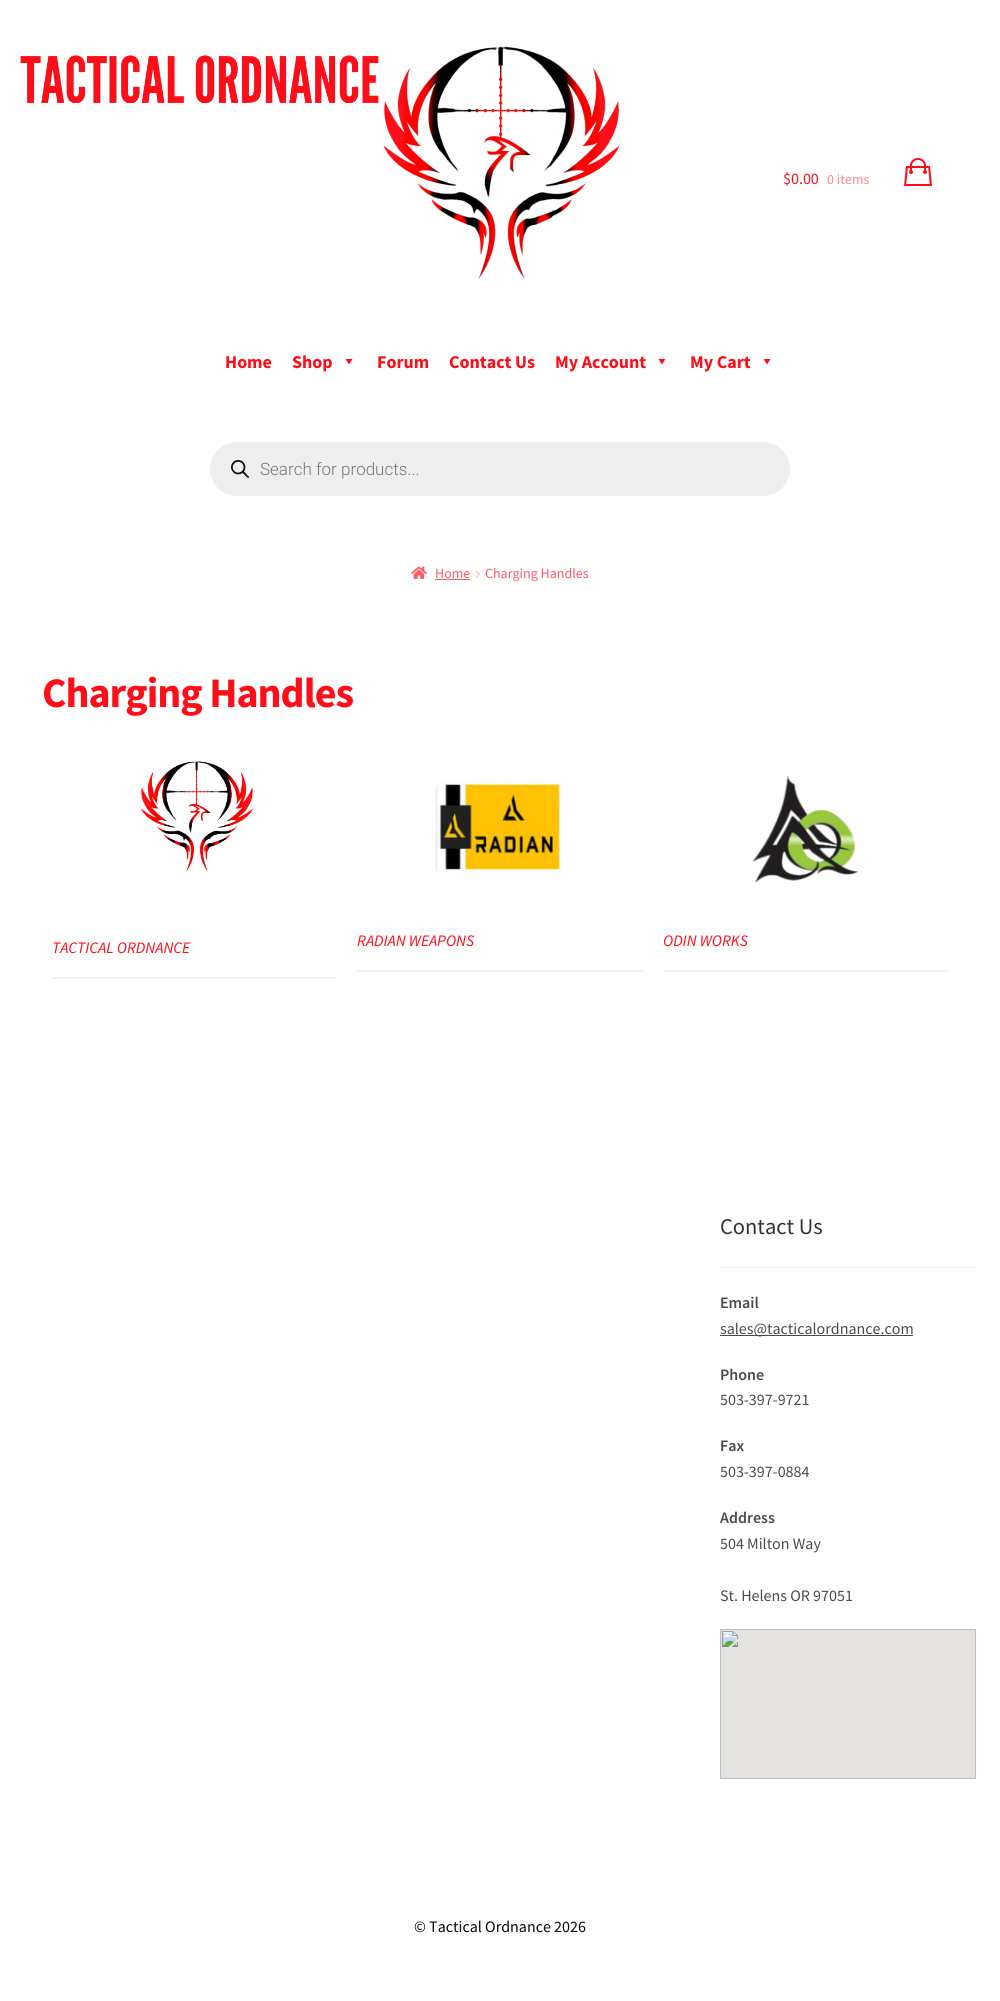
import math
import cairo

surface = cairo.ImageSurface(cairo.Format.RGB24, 1000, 2001)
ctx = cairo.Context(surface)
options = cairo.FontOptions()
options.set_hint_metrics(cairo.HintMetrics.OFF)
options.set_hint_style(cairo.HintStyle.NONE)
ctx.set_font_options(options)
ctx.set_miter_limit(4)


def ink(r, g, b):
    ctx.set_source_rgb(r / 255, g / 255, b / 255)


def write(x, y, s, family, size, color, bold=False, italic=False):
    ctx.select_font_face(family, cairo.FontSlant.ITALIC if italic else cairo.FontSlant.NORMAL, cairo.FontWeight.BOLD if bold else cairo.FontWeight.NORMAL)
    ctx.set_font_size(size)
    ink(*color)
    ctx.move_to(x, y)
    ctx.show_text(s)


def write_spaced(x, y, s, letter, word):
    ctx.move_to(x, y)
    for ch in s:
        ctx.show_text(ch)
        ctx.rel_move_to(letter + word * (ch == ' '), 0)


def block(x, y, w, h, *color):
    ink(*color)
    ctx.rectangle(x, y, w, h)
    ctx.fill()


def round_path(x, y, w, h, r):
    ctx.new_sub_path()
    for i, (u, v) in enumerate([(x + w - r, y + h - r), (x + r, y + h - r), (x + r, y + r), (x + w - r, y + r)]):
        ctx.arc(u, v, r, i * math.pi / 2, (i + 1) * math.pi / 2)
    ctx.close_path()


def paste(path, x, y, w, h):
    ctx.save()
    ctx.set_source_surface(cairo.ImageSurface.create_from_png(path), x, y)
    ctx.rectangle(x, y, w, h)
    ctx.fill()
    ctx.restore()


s1 = dict(family="Source Sans Pro", size=16, color=(255, 13, 25))
s2 = dict(family="Source Sans Pro", size=14, color=(255, 134, 140))
s3 = dict(family="Source Sans Pro", size=18, color=(255, 13, 25), bold=True)
s4 = dict(family="Roboto Light", size=17, color=(119, 119, 119))
s5 = dict(family="Source Sans Pro", size=14, color=(255, 89, 98))
s6 = dict(family="Source Sans Pro", size=16, color=(255, 13, 25), italic=True)
s7 = dict(family="Source Sans Pro", size=22.5, color=(51, 51, 51))
s8 = dict(family="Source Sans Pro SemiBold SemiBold", size=16, color=(72, 76, 81))
s9 = dict(family="Source Sans Pro", size=16, color=(72, 76, 81))
s10 = dict(family="Source Sans Pro", size=16, color=(10, 10, 10))

ink(255, 255, 255)
ctx.paint()
paste("pic1.png", 383, 46, 237, 233)
paste("pic2.png", 20, 55, 359, 48)
write(783, 184, "$0.00", **s1)
write(827, 184, "0 items", **s2)
paste("pic3.png", 904, 158, 28, 28)
write(225, 368, "Home", **s3)
write(292, 368, "Shop", **s3)
ctx.new_path()
ctx.move_to(352.5, 359)
ctx.line_to(349, 364.5)
ctx.line_to(345.5, 359)
ctx.close_path()
ctx.fill()
write(377, 368, "Forum", **s3)
write(449, 368, "Contact Us", **s3)
write(555, 368, "My Account", **s3)
ctx.new_path()
ctx.move_to(665.5, 359)
ctx.line_to(662, 364.5)
ctx.line_to(658.5, 359)
ctx.close_path()
ctx.fill()
write(690, 368, "My Cart", **s3)
ctx.new_path()
ctx.move_to(770.5, 359)
ctx.line_to(767, 364.5)
ctx.line_to(763.5, 359)
ctx.close_path()
ctx.fill()
ink(238, 238, 238)
round_path(210, 442, 580, 54, 27)
ctx.fill()
paste("pic4.png", 231, 460, 18, 18)
write(260, 475, "Search for products...", **s4)
paste("pic5.png", 411, 566, 16, 13)
write(435, 578, "Home", **s5)
block(435, 579, 35, 1, 255, 89, 98)
paste("pic6.png", 475, 570, 6, 8)
write(485, 578, "Charging Handles", **s5)
ctx.select_font_face("Source Sans Pro", cairo.FontSlant.NORMAL, cairo.FontWeight.BOLD)
ctx.set_font_size(42)
ink(255, 13, 25)
write_spaced(42, 707, "Charging Handles", -1, 0)
paste("pic7.png", 141, 761, 112, 111)
block(52, 977, 285, 2, 242, 242, 242)
write(52, 953, "TACTICAL ORDNANCE", **s6)
paste("pic8.png", 435, 780, 128, 93)
block(357, 970, 286, 2, 242, 242, 242)
write(357, 946, "RADIAN WEAPONS", **s6)
paste("pic9.png", 752, 776, 107, 107)
block(663, 970, 285, 2, 242, 242, 242)
write(663, 946, "ODIN WORKS", **s6)
block(720, 1267, 256, 1, 242, 242, 242)
write(720, 1234, "Contact Us", **s7)
write(720, 1308, "Email", **s8)
block(720, 1335, 193, 1, 72, 76, 81)
write(720, 1334, "sales@tacticalordnance.com", **s9)
write(720, 1380, "Phone", **s8)
write(720, 1405, "503-397-9721", **s9)
write(720, 1451, "Fax", **s8)
write(720, 1477, "503-397-0884", **s9)
write(720, 1523, "Address", **s8)
write(720, 1549, "504 Milton Way", **s9)
write(720, 1601, "St. Helens OR 97051", **s9)
paste("pic10.png", 720, 1629, 256, 150)
write(414, 1932, "© Tactical Ordnance 2026", **s10)
surface.write_to_png("screenshot.png")
